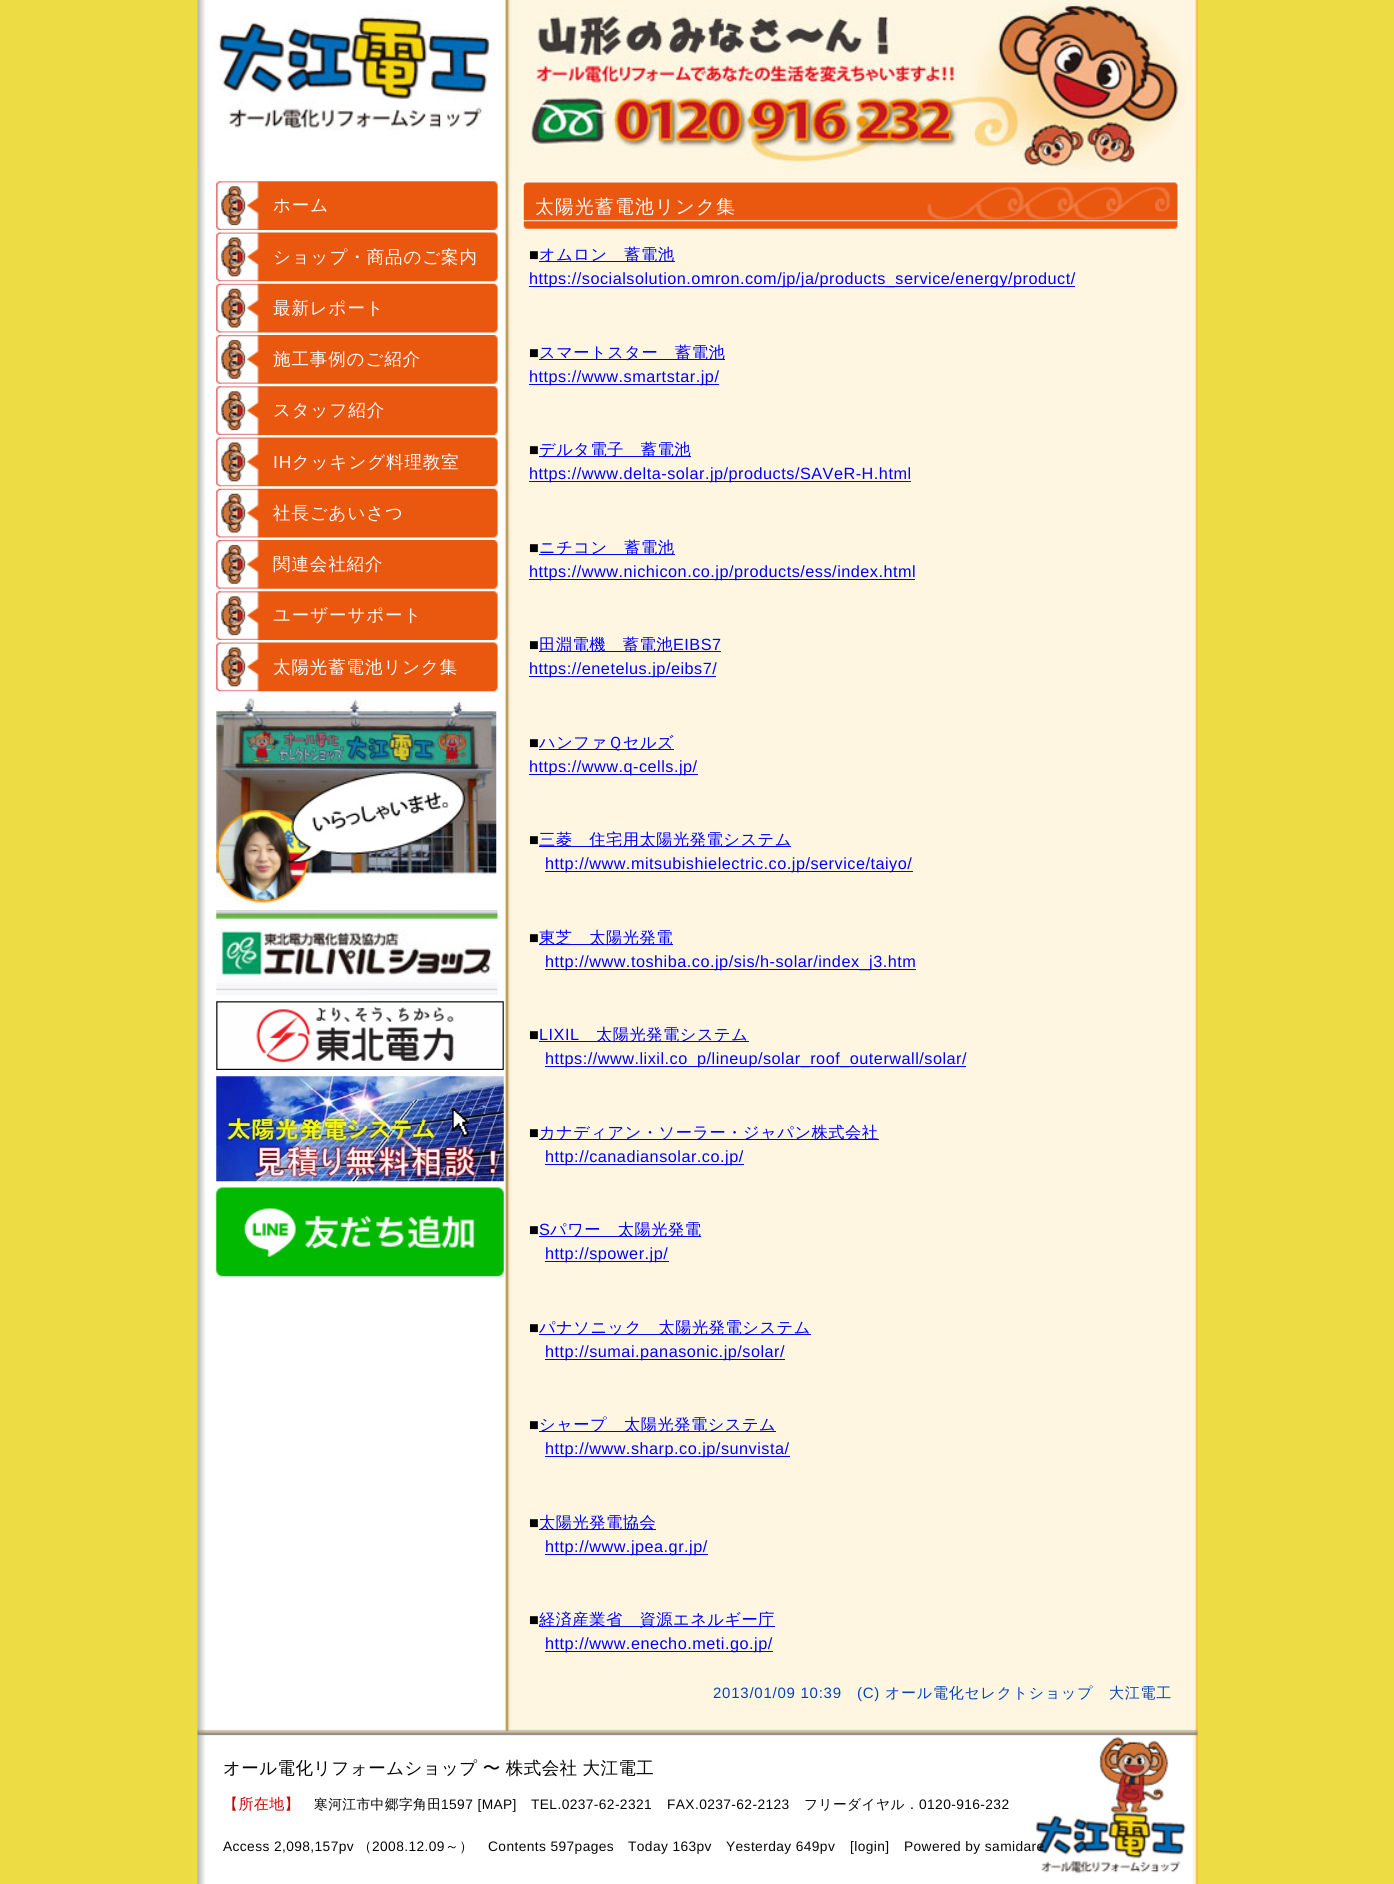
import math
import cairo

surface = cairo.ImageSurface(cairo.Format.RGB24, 1394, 1884)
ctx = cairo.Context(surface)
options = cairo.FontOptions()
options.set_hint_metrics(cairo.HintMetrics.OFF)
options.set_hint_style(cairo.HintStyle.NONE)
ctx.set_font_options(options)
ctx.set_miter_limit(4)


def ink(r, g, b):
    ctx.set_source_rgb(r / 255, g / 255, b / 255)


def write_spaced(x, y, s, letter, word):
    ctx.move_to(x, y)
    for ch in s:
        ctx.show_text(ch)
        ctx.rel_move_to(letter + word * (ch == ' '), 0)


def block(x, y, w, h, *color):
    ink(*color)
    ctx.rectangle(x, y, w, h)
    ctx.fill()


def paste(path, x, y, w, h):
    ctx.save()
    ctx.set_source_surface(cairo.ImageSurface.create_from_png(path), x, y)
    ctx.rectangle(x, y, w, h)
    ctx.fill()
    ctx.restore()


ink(237, 220, 68)
ctx.paint()
paste("pic1.png", 197, 0, 1001, 1884)
paste("pic2.png", 197, 0, 1001, 169)
paste("pic3.png", 216, 181, 282, 49)
ctx.select_font_face("WenQuanYi Zen Hei Medium")
ctx.set_font_size(17.5)
ink(253, 250, 250)
write_spaced(273, 211, "ホーム", 0.9, 0)
paste("pic4.png", 216, 232, 282, 50)
write_spaced(273, 263, "ショップ・商品のご案内", 0.9, 0)
paste("pic5.png", 216, 283, 282, 50)
write_spaced(273, 314, "最新レポート", 0.9, 0)
paste("pic6.png", 216, 335, 282, 49)
write_spaced(273, 365, "施工事例のご紹介", 0.9, 0)
paste("pic3.png", 216, 386, 282, 49)
write_spaced(273, 416, "スタッフ紹介", 0.9, 0)
paste("pic4.png", 216, 437, 282, 50)
ctx.select_font_face("Liberation Sans")
write_spaced(273, 468, "IH", 0.9, 0)
ctx.select_font_face("WenQuanYi Zen Hei Medium")
write_spaced(292, 468, "クッキング料理教室", 0.9, 0)
paste("pic7.png", 216, 488, 282, 50)
write_spaced(273, 519, "社長ごあいさつ", 0.9, 0)
paste("pic6.png", 216, 540, 282, 49)
write_spaced(273, 570, "関連会社紹介", 0.9, 0)
paste("pic3.png", 216, 591, 282, 49)
write_spaced(273, 621, "ユーザーサポート", 0.9, 0)
paste("pic4.png", 216, 642, 282, 50)
write_spaced(273, 673, "太陽光蓄電池リンク集", 0.9, 0)
paste("pic8.png", 216, 697, 281, 207)
paste("pic9.png", 216, 910, 282, 85)
paste("pic10.png", 216, 1001, 288, 69)
paste("pic11.png", 216, 1076, 288, 106)
paste("pic12.png", 216, 1187, 288, 90)
paste("pic13.png", 522, 181, 657, 49)
ctx.set_font_size(18.75)
write_spaced(535, 213, "太陽光蓄電池リンク集", 1.25, 0)
ctx.select_font_face("Liberation Sans")
ctx.set_font_size(16.25)
ink(0, 0, 0)
write_spaced(529, 260, "■", 0.5, 0)
block(539, 261, 136, 1, 0, 0, 255)
ctx.select_font_face("WenQuanYi Zen Hei Medium")
write_spaced(539, 260, "オムロン　蓄電池", 0.5, 0)
block(529, 286, 546, 1, 0, 0, 255)
ctx.select_font_face("Liberation Sans")
write_spaced(529, 284, "https://socialsolution.omron.com/jp/ja/products_service/energy/product/", 0.5, 0)
ink(0, 0, 0)
write_spaced(529, 358, "■", 0.5, 0)
block(539, 359, 186, 1, 0, 0, 255)
ctx.select_font_face("WenQuanYi Zen Hei Medium")
write_spaced(539, 358, "スマートスター　蓄電池", 0.5, 0)
block(529, 384, 190, 1, 0, 0, 255)
ctx.select_font_face("Liberation Sans")
write_spaced(529, 382, "https://www.smartstar.jp/", 0.5, 0)
ink(0, 0, 0)
write_spaced(529, 455, "■", 0.5, 0)
block(539, 456, 152, 1, 0, 0, 255)
ctx.select_font_face("WenQuanYi Zen Hei Medium")
write_spaced(539, 455, "デルタ電子　蓄電池", 0.5, 0)
block(529, 481, 382, 1, 0, 0, 255)
ctx.select_font_face("Liberation Sans")
write_spaced(529, 479, "https://www.delta-solar.jp/products/SAVeR-H.html", 0.5, 0)
ink(0, 0, 0)
write_spaced(529, 553, "■", 0.5, 0)
block(539, 554, 136, 1, 0, 0, 255)
ctx.select_font_face("WenQuanYi Zen Hei Medium")
write_spaced(539, 553, "ニチコン　蓄電池", 0.5, 0)
block(529, 579, 386, 1, 0, 0, 255)
ctx.select_font_face("Liberation Sans")
write_spaced(529, 577, "https://www.nichicon.co.jp/products/ess/index.html", 0.5, 0)
ink(0, 0, 0)
write_spaced(529, 650, "■", 0.5, 0)
block(539, 651, 182, 1, 0, 0, 255)
ctx.select_font_face("WenQuanYi Zen Hei Medium")
write_spaced(539, 650, "田淵電機　蓄電池", 0.5, 0)
ctx.select_font_face("Liberation Sans")
write_spaced(673, 650, "EIBS7", 0.5, 0)
block(529, 676, 187, 1, 0, 0, 255)
write_spaced(529, 674, "https://enetelus.jp/eibs7/", 0.5, 0)
ink(0, 0, 0)
write_spaced(529, 748, "■", 0.5, 0)
block(539, 749, 135, 1, 0, 0, 255)
ctx.select_font_face("WenQuanYi Zen Hei Medium")
write_spaced(539, 748, "ハンファＱセルズ", 0.5, 0)
block(529, 774, 169, 1, 0, 0, 255)
ctx.select_font_face("Liberation Sans")
write_spaced(529, 772, "https://www.q-cells.jp/", 0.5, 0)
ink(0, 0, 0)
write_spaced(529, 845, "■", 0.5, 0)
block(539, 846, 252, 1, 0, 0, 255)
ctx.select_font_face("WenQuanYi Zen Hei Medium")
write_spaced(539, 845, "三菱　住宅用太陽光発電システム", 0.5, 0)
block(545, 871, 368, 1, 0, 0, 255)
ctx.select_font_face("Liberation Sans")
write_spaced(545, 869, "http://www.mitsubishielectric.co.jp/service/taiyo/", 0.5, 0)
ink(0, 0, 0)
write_spaced(529, 943, "■", 0.5, 0)
block(539, 944, 134, 1, 0, 0, 255)
ctx.select_font_face("WenQuanYi Zen Hei Medium")
write_spaced(539, 943, "東芝　太陽光発電", 0.5, 0)
block(545, 969, 371, 1, 0, 0, 255)
ctx.select_font_face("Liberation Sans")
write_spaced(545, 967, "http://www.toshiba.co.jp/sis/h-solar/index_j3.htm", 0.5, 0)
ink(0, 0, 0)
write_spaced(529, 1040, "■", 0.5, 0)
ink(0, 0, 255)
write_spaced(539, 1040, "LIXIL", 0.5, 0)
block(539, 1041, 210, 1, 0, 0, 255)
ctx.select_font_face("WenQuanYi Zen Hei Medium")
write_spaced(596, 1040, "太陽光発電システム", 0.5, 0)
block(545, 1066, 421, 1, 0, 0, 255)
ctx.select_font_face("Liberation Sans")
write_spaced(545, 1064, "https://www.lixil.co", 0.5, 0)
write_spaced(697, 1064, "p/lineup/solar_roof_outerwall/solar/", 0.5, 0)
ink(0, 0, 0)
write_spaced(529, 1138, "■", 0.5, 0)
block(539, 1139, 340, 1, 0, 0, 255)
ctx.select_font_face("WenQuanYi Zen Hei Medium")
write_spaced(539, 1138, "カナディアン・ソーラー・ジャパン株式会社", 0.5, 0)
block(545, 1164, 199, 1, 0, 0, 255)
ctx.select_font_face("Liberation Sans")
write_spaced(545, 1162, "http://canadiansolar.co.jp/", 0.5, 0)
ink(0, 0, 0)
write_spaced(529, 1235, "■", 0.5, 0)
ink(0, 0, 255)
write_spaced(539, 1235, "S", 0.5, 0)
block(539, 1236, 162, 1, 0, 0, 255)
ctx.select_font_face("WenQuanYi Zen Hei Medium")
write_spaced(550, 1235, "パワー　太陽光発電", 0.5, 0)
block(545, 1261, 124, 1, 0, 0, 255)
ctx.select_font_face("Liberation Sans")
write_spaced(545, 1259, "http://spower.jp/", 0.5, 0)
ink(0, 0, 0)
write_spaced(529, 1333, "■", 0.5, 0)
block(539, 1334, 272, 1, 0, 0, 255)
ctx.select_font_face("WenQuanYi Zen Hei Medium")
write_spaced(539, 1333, "パナソニック　太陽光発電システム", 0.5, 0)
block(545, 1359, 240, 1, 0, 0, 255)
ctx.select_font_face("Liberation Sans")
write_spaced(545, 1357, "http://sumai.panasonic.jp/solar/", 0.5, 0)
ink(0, 0, 0)
write_spaced(529, 1430, "■", 0.5, 0)
block(539, 1431, 237, 1, 0, 0, 255)
ctx.select_font_face("WenQuanYi Zen Hei Medium")
write_spaced(539, 1430, "シャープ　太陽光発電システム", 0.5, 0)
block(545, 1456, 245, 1, 0, 0, 255)
ctx.select_font_face("Liberation Sans")
write_spaced(545, 1454, "http://www.sharp.co.jp/sunvista/", 0.5, 0)
ink(0, 0, 0)
write_spaced(529, 1528, "■", 0.5, 0)
block(539, 1529, 117, 1, 0, 0, 255)
ctx.select_font_face("WenQuanYi Zen Hei Medium")
write_spaced(539, 1528, "太陽光発電協会", 0.5, 0)
block(545, 1554, 163, 1, 0, 0, 255)
ctx.select_font_face("Liberation Sans")
write_spaced(545, 1552, "http://www.jpea.gr.jp/", 0.5, 0)
ink(0, 0, 0)
write_spaced(529, 1625, "■", 0.5, 0)
block(539, 1626, 236, 1, 0, 0, 255)
ctx.select_font_face("WenQuanYi Zen Hei Medium")
write_spaced(539, 1625, "経済産業省　資源エネルギー庁", 0.5, 0)
block(545, 1651, 228, 1, 0, 0, 255)
ctx.select_font_face("Liberation Sans")
write_spaced(545, 1649, "http://www.enecho.meti.go.jp/", 0.5, 0)
ctx.set_font_size(15)
ink(0, 67, 184)
write_spaced(713, 1698, "2013/01/09 10:39", 0.75, 0)
write_spaced(857, 1698, "(C)", 0.75, 0)
ctx.select_font_face("WenQuanYi Zen Hei Medium")
write_spaced(885, 1698, "オール電化セレクトショップ　大江電工", 0.75, 0)
paste("pic14.png", 197, 1728, 1001, 156)
ctx.set_font_size(17.5)
ink(6, 5, 5)
write_spaced(223, 1774, "オール電化リフォームショップ 〜 株式会社 大江電工", 0.4, -0.5)
ctx.set_font_size(15)
ink(204, 0, 0)
write_spaced(223, 1809, "【所在地】", 0.4, 0)
ctx.set_font_size(13.75)
ink(6, 5, 5)
write_spaced(314, 1809, "寒河江市中郷字角田", 0.4, 0)
ctx.select_font_face("Liberation Sans")
write_spaced(441, 1809, "1597 [MAP]", 0.4, 0)
write_spaced(531, 1809, "TEL.0237-62-2321", 0.4, 0)
write_spaced(667, 1809, "FAX.0237-62-2123", 0.4, 0)
ctx.select_font_face("WenQuanYi Zen Hei Medium")
write_spaced(804, 1809, "フリーダイヤル．", 0.4, 0)
ctx.select_font_face("Liberation Sans")
write_spaced(919, 1809, "0120-916-232", 0.4, 0)
write_spaced(223, 1851, "Access 2,098,157pv", 0.4, 0)
ctx.select_font_face("WenQuanYi Zen Hei Medium")
write_spaced(358, 1851, "（", 0.4, 0)
ctx.select_font_face("Liberation Sans")
write_spaced(372, 1851, "2008.12.09", 0.4, 0)
ctx.select_font_face("WenQuanYi Zen Hei Medium")
write_spaced(445, 1851, "～）", 0.4, 0)
ctx.select_font_face("Liberation Sans")
write_spaced(488, 1851, "Contents 597pages", 0.4, 0)
write_spaced(628, 1851, "Today 163pv", 0.4, 0)
write_spaced(726, 1851, "Yesterday 649pv", 0.4, 0)
write_spaced(850, 1851, "[login]", 0.4, 0)
write_spaced(904, 1851, "Powered by samidare", 0.4, 0)
surface.write_to_png("screenshot.png")
